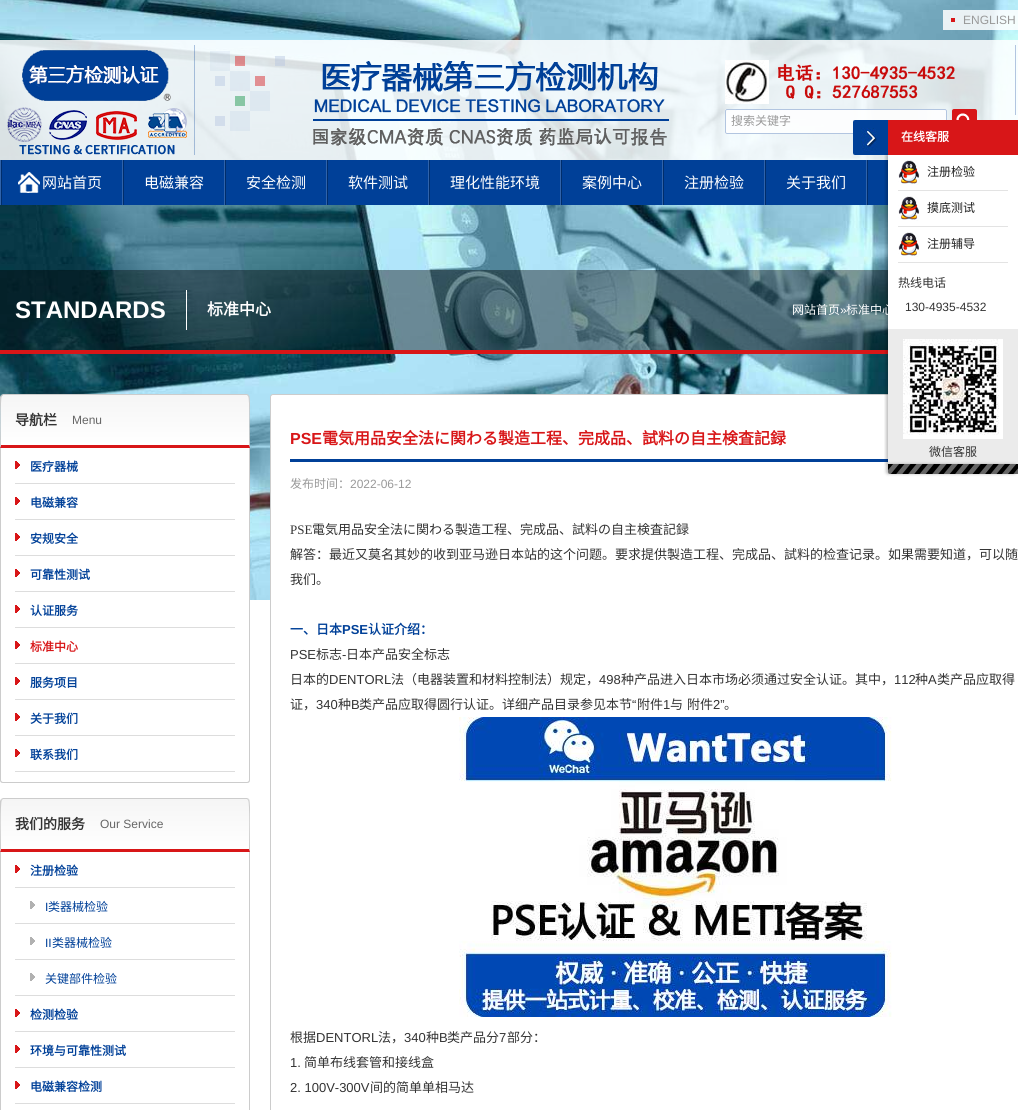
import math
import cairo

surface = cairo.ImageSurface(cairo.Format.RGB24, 1018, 1110)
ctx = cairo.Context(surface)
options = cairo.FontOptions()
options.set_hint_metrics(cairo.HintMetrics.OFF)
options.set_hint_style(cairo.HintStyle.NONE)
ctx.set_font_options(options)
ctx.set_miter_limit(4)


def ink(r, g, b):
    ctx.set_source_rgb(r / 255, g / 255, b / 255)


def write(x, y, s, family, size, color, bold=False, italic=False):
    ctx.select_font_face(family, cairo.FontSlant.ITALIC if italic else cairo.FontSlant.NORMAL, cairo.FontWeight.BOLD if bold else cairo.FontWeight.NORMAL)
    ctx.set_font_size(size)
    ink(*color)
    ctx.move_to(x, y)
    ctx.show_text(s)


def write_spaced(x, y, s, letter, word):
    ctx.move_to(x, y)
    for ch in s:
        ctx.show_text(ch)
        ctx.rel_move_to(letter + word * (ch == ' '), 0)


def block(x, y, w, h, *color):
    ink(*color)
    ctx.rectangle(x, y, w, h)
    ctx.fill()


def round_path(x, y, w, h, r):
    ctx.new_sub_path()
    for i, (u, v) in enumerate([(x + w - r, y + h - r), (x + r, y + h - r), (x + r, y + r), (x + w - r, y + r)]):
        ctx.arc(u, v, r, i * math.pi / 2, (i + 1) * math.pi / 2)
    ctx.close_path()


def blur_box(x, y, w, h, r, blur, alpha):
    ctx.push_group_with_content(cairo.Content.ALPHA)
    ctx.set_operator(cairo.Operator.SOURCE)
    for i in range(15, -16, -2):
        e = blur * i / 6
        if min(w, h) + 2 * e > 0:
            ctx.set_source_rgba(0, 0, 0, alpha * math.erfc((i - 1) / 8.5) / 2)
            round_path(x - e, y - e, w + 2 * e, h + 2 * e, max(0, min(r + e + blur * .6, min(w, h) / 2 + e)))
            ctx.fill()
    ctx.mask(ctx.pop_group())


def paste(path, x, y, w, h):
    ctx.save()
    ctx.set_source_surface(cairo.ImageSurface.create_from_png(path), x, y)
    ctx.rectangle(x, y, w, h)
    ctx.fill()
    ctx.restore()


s1 = dict(family="Liberation Sans", size=12, color=(153, 153, 153))
s2 = dict(family="Noto Sans CJK SC", size=12, color=(153, 153, 153))
s3 = dict(family="Noto Sans CJK SC", size=15, color=(255, 255, 255))
s4 = dict(family="Noto Sans CJK SC", size=12, color=(255, 255, 255), bold=True)
s5 = dict(family="Noto Sans CJK SC", size=12, color=(34, 34, 34))
s6 = dict(family="Noto Sans CJK SC", size=12, color=(51, 51, 51))
s7 = dict(family="Liberation Sans", size=12, color=(51, 51, 51))
s8 = dict(family="Liberation Sans", size=24, color=(255, 255, 255), bold=True)
s9 = dict(family="Noto Sans CJK SC", size=16, color=(255, 255, 255), bold=True)
s10 = dict(family="Noto Sans CJK SC", size=12, color=(255, 255, 255))
s11 = dict(family="Liberation Sans", size=12, color=(255, 255, 255))
s12 = dict(family="Noto Sans CJK SC", size=14, color=(51, 51, 51), bold=True)
s13 = dict(family="Liberation Sans", size=12, color=(102, 102, 102))
s14 = dict(family="Noto Sans CJK SC", size=12, color=(0, 64, 152), bold=True)
s15 = dict(family="Noto Sans CJK SC", size=12, color=(216, 22, 24), bold=True)
s16 = dict(family="Liberation Sans", size=12, color=(0, 64, 152))
s17 = dict(family="Noto Sans CJK SC", size=12, color=(0, 64, 152))
s18 = dict(family="Liberation Sans", size=16, color=(216, 22, 24), bold=True)
s19 = dict(family="Noto Sans CJK SC", size=16, color=(216, 22, 24), bold=True)
s20 = dict(family="Liberation Serif", size=13, color=(51, 51, 51))
s21 = dict(family="Noto Sans CJK SC", size=13, color=(51, 51, 51))
s22 = dict(family="Noto Sans CJK SC", size=13, color=(0, 64, 152), bold=True)
s23 = dict(family="Liberation Sans", size=13, color=(0, 64, 152), bold=True)
s24 = dict(family="Liberation Sans", size=13, color=(51, 51, 51))

ink(255, 255, 255)
ctx.paint()
paste("pic1.png", 0, 0, 1018, 600)
ctx.set_source_rgba(1, 1, 1, 0.85)
ctx.rectangle(943, 10, 75, 20)
ctx.fill()
block(951, 18, 4, 4, 216, 22, 24)
write(963, 24, "ENGLISH", **s1)
ctx.set_source_rgba(1, 1, 1, 0.85)
ctx.rectangle(0, 40, 1018, 120)
ctx.fill()
paste("pic2.png", 7, 45, 662, 110)
block(1015, 45, 1, 70, 178, 197, 224)
paste("pic3.png", 725, 60, 230, 44)
ctx.set_source_rgba(1, 1, 1, 0.85)
ctx.rectangle(725, 109, 222, 25)
ctx.fill()
round_path(725.5, 109.5, 221, 24, 1.5)
ink(178, 197, 224)
ctx.set_line_width(1)
ctx.stroke()
write(731, 125, "搜索关键字", **s2)
ink(216, 22, 24)
round_path(952, 109, 25, 25, 2)
ctx.fill()
paste("pic4.png", 956, 113, 14, 7)
block(2, 160, 886, 45, 0, 64, 152)
block(0, 160, 1, 45, 47, 99, 171)
paste("pic5.png", 18, 172, 22, 21)
block(122, 160, 1, 45, 47, 99, 171)
block(1, 160, 1, 45, 0, 45, 107)
write(42, 188, "网站首页", **s3)
block(224, 160, 1, 45, 47, 99, 171)
block(123, 160, 1, 45, 0, 45, 107)
write(144, 188, "电磁兼容", **s3)
block(326, 160, 1, 45, 47, 99, 171)
block(225, 160, 1, 45, 0, 45, 107)
write(246, 188, "安全检测", **s3)
block(428, 160, 1, 45, 47, 99, 171)
block(327, 160, 1, 45, 0, 45, 107)
write(348, 188, "软件测试", **s3)
block(560, 160, 1, 45, 47, 99, 171)
block(429, 160, 1, 45, 0, 45, 107)
write(450, 188, "理化性能环境", **s3)
block(662, 160, 1, 45, 47, 99, 171)
block(561, 160, 1, 45, 0, 45, 107)
write(582, 188, "案例中心", **s3)
block(764, 160, 1, 45, 47, 99, 171)
block(663, 160, 1, 45, 0, 45, 107)
write(684, 188, "注册检验", **s3)
block(866, 160, 1, 45, 47, 99, 171)
block(765, 160, 1, 45, 0, 45, 107)
write(786, 188, "关于我们", **s3)
block(867, 160, 1, 45, 0, 45, 107)
paste("pic6.png", 853, 120, 35, 35)
ink(255, 255, 255)
round_path(270.5, 394.5, 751, 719, 2.5)
ctx.fill_preserve()
ink(204, 204, 204)
ctx.stroke()
block(888, 155, 130, 240, 255, 255, 255)
ctx.set_source_rgba(0, 0, 0, 0.4)
ctx.rectangle(0, 270, 888, 80)
ctx.fill()
block(0, 350, 888, 4, 216, 22, 24)
block(290, 459, 598, 3, 0, 64, 152)
ctx.save()
ctx.rectangle(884, 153, 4, 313)
ctx.clip()
ink(0, 0, 0)
blur_box(886, 155, 130, 309, 0, 1.5, 0.25)
ctx.restore()
block(888, 120, 130, 35, 216, 22, 24)
write(901, 141, "在线客服", **s4)
block(898, 190, 110, 1, 227, 227, 227)
paste("pic7.png", 898, 160, 22, 25)
write(927, 176, "注册检验", **s5)
block(898, 226, 110, 1, 227, 227, 227)
paste("pic7.png", 898, 196, 22, 25)
write(927, 212, "摸底测试", **s5)
block(898, 262, 110, 1, 227, 227, 227)
paste("pic7.png", 898, 232, 22, 25)
write(927, 248, "注册辅导", **s5)
write(898, 287, "热线电话", **s6)
write(905, 311, "130-4935-4532", **s7)
block(888, 329, 130, 135, 235, 235, 235)
paste("pic8.png", 903, 339, 100, 100)
write(929, 456, "微信客服", **s6)
ink(0, 0, 0)
blur_box(886, 464, 130, 10, 2, 1.5, 0.25)
paste("pic9.png", 888, 464, 130, 10)
block(186, 290, 1, 40, 255, 255, 255)
write(15, 318, "STANDARDS", **s8)
write(207, 315, "标准中心", **s9)
write(792, 314, "网站首页", **s10)
write(840, 314, "»", **s11)
write(846, 314, "标准中心", **s10)
gradient = cairo.LinearGradient(1, 395, 1, 445)
gradient.add_color_stop_rgba(0, 0.961, 0.961, 0.961, 1)
gradient.add_color_stop_rgba(1, 1, 1, 1, 1)
ctx.set_source(gradient)
ctx.new_path()
ctx.move_to(3, 395)
ctx.line_to(247, 395)
ctx.curve_to(248, 395, 249, 396, 249, 397)
ctx.line_to(249, 445)
ctx.line_to(1, 445)
ctx.line_to(1, 397)
ctx.curve_to(1, 396, 2, 395, 3, 395)
ctx.close_path()
ctx.fill()
ink(204, 204, 204)
ctx.new_path()
ctx.move_to(3, 394)
ctx.line_to(1, 395)
ctx.line_to(2, 396)
ctx.line_to(3, 395)
ctx.line_to(247, 395)
ctx.line_to(248, 396)
ctx.line_to(249, 395)
ctx.line_to(247, 394)
ctx.close_path()
ctx.fill()
ctx.save()
ctx.rectangle(0, 394, 250, 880)
ctx.clip()
ctx.new_path()
ctx.move_to(250, 448)
ctx.curve_to(250, 442, 251, 397, 249, 395)
ctx.line_to(248, 396)
ctx.curve_to(250, 397, 249, 439, 249, 445)
ctx.close_path()
ctx.fill()
ctx.restore()
ink(216, 22, 24)
ctx.new_path()
ctx.move_to(250, 448)
ctx.line_to(249, 445)
ctx.line_to(1, 445)
ctx.line_to(0, 448)
ctx.close_path()
ctx.fill()
ink(204, 204, 204)
ctx.new_path()
ctx.move_to(0, 448)
ctx.line_to(1, 445)
ctx.curve_to(1, 439, 0, 397, 2, 396)
ctx.line_to(1, 395)
ctx.line_to(0, 397)
ctx.close_path()
ctx.fill()
write(15, 425, "导航栏", **s12)
write(72, 424, "Menu", **s13)
ink(255, 255, 255)
ctx.new_path()
ctx.move_to(0, 448)
ctx.line_to(250, 448)
ctx.line_to(250, 780)
ctx.curve_to(250, 781.5, 248.5, 783, 247, 783)
ctx.line_to(3, 783)
ctx.curve_to(1.5, 783, 0, 781.5, 0, 780)
ctx.close_path()
ctx.fill()
ink(204, 204, 204)
ctx.set_fill_rule(cairo.FillRule.EVEN_ODD)
ctx.new_path()
ctx.move_to(0, 448)
ctx.line_to(250, 448)
ctx.line_to(250, 780)
ctx.curve_to(250, 782, 249, 783, 247, 783)
ctx.line_to(3, 783)
ctx.curve_to(1, 783, 0, 782, 0, 780)
ctx.close_path()
ctx.move_to(1, 448)
ctx.line_to(249, 448)
ctx.line_to(249, 780)
ctx.curve_to(249, 781, 248, 782, 247, 782)
ctx.line_to(3, 782)
ctx.curve_to(2, 782, 1, 781, 1, 780)
ctx.close_path()
ctx.fill()
paste("pic10.png", 15, 461, 5, 8)
block(15, 483, 220, 1, 221, 221, 221)
write(30, 471, "医疗器械", **s14)
paste("pic10.png", 15, 497, 5, 8)
block(15, 519, 220, 1, 221, 221, 221)
write(30, 507, "电磁兼容", **s14)
paste("pic10.png", 15, 533, 5, 8)
block(15, 555, 220, 1, 221, 221, 221)
write(30, 543, "安规安全", **s14)
paste("pic10.png", 15, 569, 5, 8)
block(15, 591, 220, 1, 221, 221, 221)
write(30, 579, "可靠性测试", **s14)
paste("pic10.png", 15, 605, 5, 8)
block(15, 627, 220, 1, 221, 221, 221)
write(30, 615, "认证服务", **s14)
paste("pic10.png", 15, 641, 5, 8)
block(15, 663, 220, 1, 221, 221, 221)
write(30, 651, "标准中心", **s15)
paste("pic10.png", 15, 677, 5, 8)
block(15, 699, 220, 1, 221, 221, 221)
write(30, 687, "服务项目", **s14)
paste("pic10.png", 15, 713, 5, 8)
block(15, 735, 220, 1, 221, 221, 221)
write(30, 723, "关于我们", **s14)
paste("pic10.png", 15, 749, 5, 8)
block(15, 771, 220, 1, 221, 221, 221)
write(30, 759, "联系我们", **s14)
gradient = cairo.LinearGradient(1, 799, 1, 849)
gradient.add_color_stop_rgba(0, 0.961, 0.961, 0.961, 1)
gradient.add_color_stop_rgba(1, 1, 1, 1, 1)
ctx.set_source(gradient)
ctx.new_path()
ctx.move_to(3, 799)
ctx.line_to(247, 799)
ctx.curve_to(248, 799, 249, 800, 249, 801)
ctx.line_to(249, 849)
ctx.line_to(1, 849)
ctx.line_to(1, 801)
ctx.curve_to(1, 800, 2, 799, 3, 799)
ctx.close_path()
ctx.fill()
ink(204, 204, 204)
ctx.set_fill_rule(cairo.FillRule.WINDING)
ctx.new_path()
ctx.move_to(3, 798)
ctx.line_to(1, 799)
ctx.line_to(2, 800)
ctx.line_to(3, 799)
ctx.line_to(247, 799)
ctx.line_to(248, 800)
ctx.line_to(249, 799)
ctx.line_to(247, 798)
ctx.close_path()
ctx.fill()
ctx.save()
ctx.rectangle(0, 394, 250, 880)
ctx.clip()
ctx.new_path()
ctx.move_to(250, 852)
ctx.curve_to(250, 846, 251, 801, 249, 799)
ctx.line_to(248, 800)
ctx.curve_to(250, 801, 249, 843, 249, 849)
ctx.close_path()
ctx.fill()
ctx.restore()
ink(216, 22, 24)
ctx.new_path()
ctx.move_to(250, 852)
ctx.line_to(249, 849)
ctx.line_to(1, 849)
ctx.line_to(0, 852)
ctx.close_path()
ctx.fill()
ink(204, 204, 204)
ctx.new_path()
ctx.move_to(0, 852)
ctx.line_to(1, 849)
ctx.curve_to(1, 843, 0, 801, 2, 800)
ctx.line_to(1, 799)
ctx.line_to(0, 801)
ctx.close_path()
ctx.fill()
write(15, 829, "我们的服务", **s12)
write(100, 828, "Our Service", **s13)
ink(204, 204, 204)
ctx.set_fill_rule(cairo.FillRule.EVEN_ODD)
ctx.new_path()
ctx.move_to(0, 852)
ctx.line_to(250, 852)
ctx.line_to(250, 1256)
ctx.curve_to(250, 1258, 249, 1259, 247, 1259)
ctx.line_to(3, 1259)
ctx.curve_to(1, 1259, 0, 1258, 0, 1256)
ctx.close_path()
ctx.move_to(1, 852)
ctx.line_to(249, 852)
ctx.line_to(249, 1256)
ctx.curve_to(249, 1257, 248, 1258, 247, 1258)
ctx.line_to(3, 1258)
ctx.curve_to(2, 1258, 1, 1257, 1, 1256)
ctx.close_path()
ctx.fill()
paste("pic10.png", 15, 865, 5, 8)
block(15, 887, 220, 1, 221, 221, 221)
write(30, 875, "注册检验", **s14)
paste("pic11.png", 30, 901, 5, 8)
block(15, 923, 220, 1, 221, 221, 221)
write(45, 911, "I", **s16)
write(48, 911, "类器械检验", **s17)
paste("pic11.png", 30, 937, 5, 8)
block(15, 959, 220, 1, 221, 221, 221)
write(45, 947, "II", **s16)
write(52, 947, "类器械检验", **s17)
paste("pic11.png", 30, 973, 5, 8)
block(15, 995, 220, 1, 221, 221, 221)
write(45, 983, "关键部件检验", **s17)
paste("pic10.png", 15, 1009, 5, 8)
block(15, 1031, 220, 1, 221, 221, 221)
write(30, 1019, "检测检验", **s14)
paste("pic10.png", 15, 1045, 5, 8)
block(15, 1067, 220, 1, 221, 221, 221)
write(30, 1055, "环境与可靠性测试", **s14)
paste("pic10.png", 15, 1081, 5, 8)
block(15, 1103, 220, 1, 221, 221, 221)
write(30, 1091, "电磁兼容检测", **s14)
write(290, 444, "PSE", **s18)
write(322, 444, "電気用品安全法に関わる製造工程、完成品、試料の自主検査記録", **s19)
write(290, 488, "发布时间：", **s2)
write(350, 488, "2022-06-12", **s1)
write(290, 534, "PSE", **s20)
write(312, 534, "電気用品安全法に関わる製造工程、完成品、試料の自主検査記録", **s21)
write(290, 559, "解答：最近又莫名其妙的收到亚马逊日本站的这个问题。要求提供製造工程、完成品、試料的检查记录。如果需要知道，可以随", **s21)
write(290, 584, "我们。", **s21)
write(290, 634, "一、日本", **s22)
write(342, 634, "PSE", **s23)
write(368, 634, "认证介绍：", **s22)
write(290, 659, "PSE", **s24)
write(316, 659, "标志", **s21)
write(342, 659, "-", **s24)
write(346, 659, "日本产品安全标志", **s21)
write(290, 684, "日本的", **s21)
write(329, 684, "DENTORL", **s24)
write(391, 684, "法（电器装置和材料控制法）规定，", **s21)
write(599, 684, "498", **s24)
write(621, 684, "种产品进入日本市场必须通过安全认证。其中，", **s21)
write(894, 684, "112", **s24)
write(915, 684, "种", **s21)
write(928, 684, "A", **s24)
write(937, 684, "类产品应取得", **s21)
write(290, 709, "证，", **s21)
write(316, 709, "340", **s24)
write(338, 709, "种", **s21)
write(351, 709, "B", **s24)
write(359, 709, "类产品应取得圆行认证。详细产品目录参见本节", **s21)
write(632, 709, "“", **s24)
write(637, 709, "附件", **s21)
write(663, 709, "1", **s24)
ctx.select_font_face("Noto Sans CJK SC")
write_spaced(670, 709, "与 附件", 0, 1)
write(713, 709, "2”", **s24)
write(724, 709, "。", **s21)
paste("pic12.png", 459, 717, 433, 300)
write(290, 1042, "根据", **s21)
write(316, 1042, "DENTORL", **s24)
write(378, 1042, "法，", **s21)
write(404, 1042, "340", **s24)
write(426, 1042, "种", **s21)
write(439, 1042, "B", **s24)
write(447, 1042, "类产品分", **s21)
write(499, 1042, "7", **s24)
write(507, 1042, "部分：", **s21)
write(290, 1067, "1.", **s24)
write(304, 1067, "简单布线套管和接线盒", **s21)
write(290, 1092, "2. 100V-300V", **s24)
write(370, 1092, "间的简单单相马达", **s21)
surface.write_to_png("screenshot.png")
